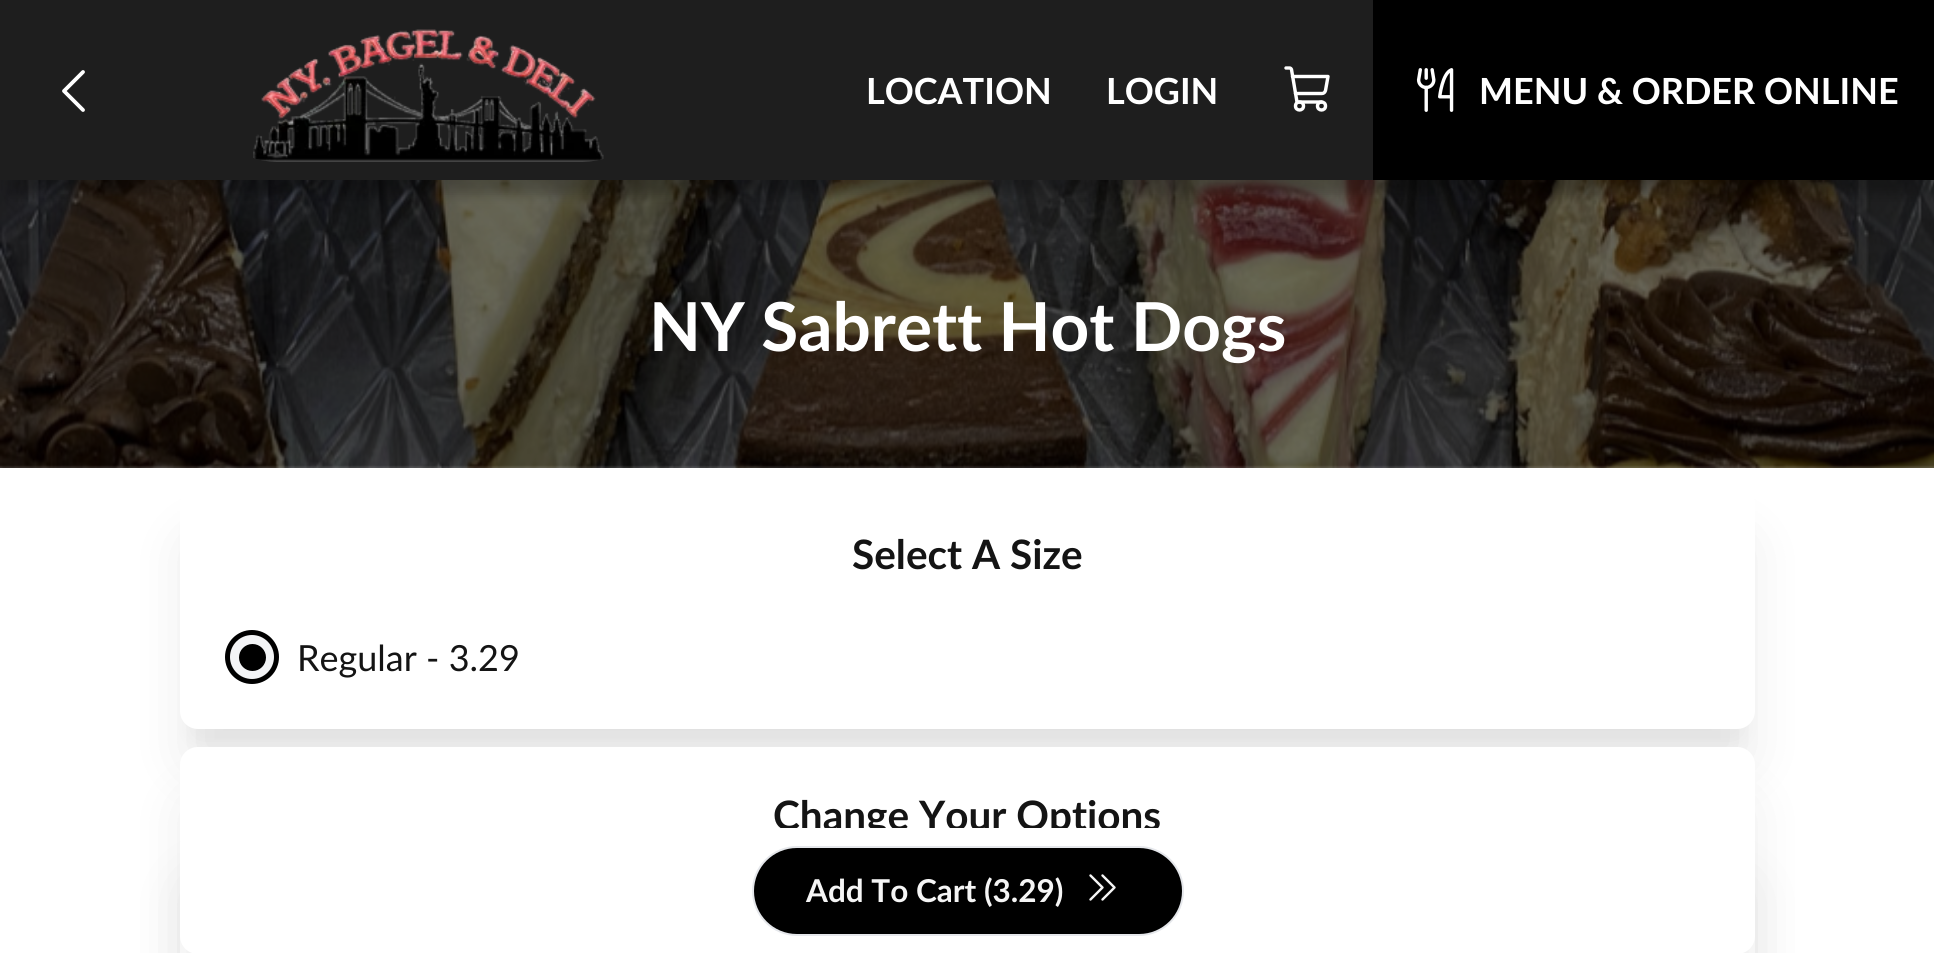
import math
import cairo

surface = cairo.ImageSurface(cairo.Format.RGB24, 1934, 953)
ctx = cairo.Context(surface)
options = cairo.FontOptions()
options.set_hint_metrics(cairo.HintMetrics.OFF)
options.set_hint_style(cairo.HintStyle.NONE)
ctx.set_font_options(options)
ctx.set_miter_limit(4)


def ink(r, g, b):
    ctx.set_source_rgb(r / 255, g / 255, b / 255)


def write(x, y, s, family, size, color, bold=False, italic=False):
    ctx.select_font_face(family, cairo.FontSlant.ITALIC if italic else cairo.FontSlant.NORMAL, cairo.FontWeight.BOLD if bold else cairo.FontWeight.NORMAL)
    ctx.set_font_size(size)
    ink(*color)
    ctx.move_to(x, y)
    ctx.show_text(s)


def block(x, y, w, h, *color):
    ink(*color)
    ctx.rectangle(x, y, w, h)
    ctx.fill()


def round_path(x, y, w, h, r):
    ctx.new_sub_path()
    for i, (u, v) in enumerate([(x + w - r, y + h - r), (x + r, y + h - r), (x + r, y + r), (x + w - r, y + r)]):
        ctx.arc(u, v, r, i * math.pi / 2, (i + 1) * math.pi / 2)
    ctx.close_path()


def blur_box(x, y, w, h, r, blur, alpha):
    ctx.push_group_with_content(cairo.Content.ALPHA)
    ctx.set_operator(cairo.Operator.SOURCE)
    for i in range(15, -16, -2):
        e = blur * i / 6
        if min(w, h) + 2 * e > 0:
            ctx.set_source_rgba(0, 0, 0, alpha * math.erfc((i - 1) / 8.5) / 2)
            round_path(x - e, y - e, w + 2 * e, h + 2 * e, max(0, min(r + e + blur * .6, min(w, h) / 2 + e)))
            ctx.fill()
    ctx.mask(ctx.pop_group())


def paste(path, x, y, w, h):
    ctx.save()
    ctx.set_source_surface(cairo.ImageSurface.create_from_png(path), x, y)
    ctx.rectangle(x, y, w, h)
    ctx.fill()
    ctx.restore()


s1 = dict(family="Lato", size=36, color=(255, 255, 255), bold=True)
s2 = dict(family="Lato", size=67.5, color=(255, 255, 255), bold=True)
s3 = dict(family="Lato", size=40.5, color=(20, 20, 20), bold=True)
s4 = dict(family="Lato", size=36, color=(20, 20, 20))
s5 = dict(family="Lato", size=31.5, color=(245, 245, 245), bold=True)

ink(255, 255, 255)
ctx.paint()
ink(0, 0, 0)
blur_box(191, 542, 1553, 221, 7, 28, 0.1)
paste("pic3.png", 0, 180, 1934, 288)
blur_box(9, 32, 1917, 162, 0, 5.5, 0.25)
block(0, 0, 1373, 180, 30, 30, 30)
ctx.new_path()
ctx.move_to(83, 110)
ctx.line_to(64, 91)
ctx.line_to(83, 72)
ink(255, 255, 255)
ctx.set_line_width(3.8)
ctx.set_line_cap(cairo.LineCap.ROUND)
ctx.set_line_join(cairo.LineJoin.ROUND)
ctx.stroke()
paste("pic1.png", 253, 29, 351, 133)
write(866, 104, "LOCATION", **s1)
write(1106, 104, "LOGIN", **s1)
ctx.new_path()
ctx.move_to(1321.5, 102)
ctx.line_to(1297, 102)
ctx.line_to(1291.5, 69.5)
ctx.curve_to(1291, 68.5, 1290.5, 68, 1289.5, 68)
ctx.line_to(1286, 68)
ctx.set_line_width(3.4)
ctx.stroke()
ctx.arc(1299.5, 106, 4, 0, 2 * math.pi)
ctx.set_line_cap(cairo.LineCap.BUTT)
ctx.set_line_join(cairo.LineJoin.MITER)
ctx.stroke()
ctx.arc(1321.5, 106, 4, 0, 2 * math.pi)
ctx.stroke()
ctx.new_path()
ctx.move_to(1295.5, 93.5)
ctx.line_to(1322, 93.5)
ctx.curve_to(1324, 93.5, 1325, 92, 1325.5, 90.5)
ctx.line_to(1328, 76.5)
ctx.line_to(1292.5, 76.5)
ctx.set_line_cap(cairo.LineCap.ROUND)
ctx.set_line_join(cairo.LineJoin.ROUND)
ctx.stroke()
block(1373, 0, 561, 180, 0, 0, 0)
paste("pic2.png", 1416, 68, 38, 44)
write(1479, 104, "MENU & ORDER ONLINE", **s1)
write(649, 351, "NY Sabrett Hot Dogs", **s2)
ink(0, 0, 0)
blur_box(191, 520, 1553, 220, 7, 11, 0.04)
ink(255, 255, 255)
round_path(180, 486, 1575, 243, 18)
ctx.fill()
write(852, 569, "Select A Size", **s3)
ink(243, 244, 246)
ctx.new_path()
ctx.arc(252, 657, 24.5, 0, 2 * math.pi)
ctx.fill_preserve()
ink(0, 0, 0)
ctx.set_line_width(5)
ctx.set_line_cap(cairo.LineCap.BUTT)
ctx.set_line_join(cairo.LineJoin.MITER)
ctx.stroke()
ctx.arc(252.5, 657.5, 13.5, 0, 2 * math.pi)
ctx.fill()
write(297, 671, "Regular - 3.29", **s4)
ink(0, 0, 0)
blur_box(191, 803, 1553, 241, 7, 28, 0.1)
ink(255, 255, 255)
ctx.new_path()
ctx.move_to(198, 747)
ctx.line_to(1737, 747)
ctx.curve_to(1747, 747, 1755, 755, 1755, 765)
ctx.line_to(1755, 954)
ctx.line_to(180, 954)
ctx.line_to(180, 765)
ctx.curve_to(180, 755, 188, 747, 198, 747)
ctx.close_path()
ctx.fill()
write(773, 830, "Change Your Options", **s3)
ink(0, 0, 0)
blur_box(191, 884, 1553, 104, 7, 28, 0.1)
ink(255, 255, 255)
round_path(180, 828, 1575, 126, 18)
ctx.fill()
ink(0, 0, 0)
round_path(753, 847, 430, 88, 44)
ctx.fill_preserve()
ink(229, 231, 235)
ctx.set_line_width(2)
ctx.stroke()
write(806, 902, "Add To Cart (3.29)", **s5)
ctx.new_path()
ctx.move_to(1090.5, 875.5)
ctx.line_to(1102.5, 887.5)
ctx.line_to(1090.5, 899.5)
ctx.move_to(1102.5, 875.5)
ctx.line_to(1114.5, 887.5)
ctx.line_to(1102.5, 899.5)
ctx.set_line_width(2.4)
ctx.set_line_cap(cairo.LineCap.ROUND)
ctx.set_line_join(cairo.LineJoin.ROUND)
ctx.stroke()
surface.write_to_png("screenshot.png")
